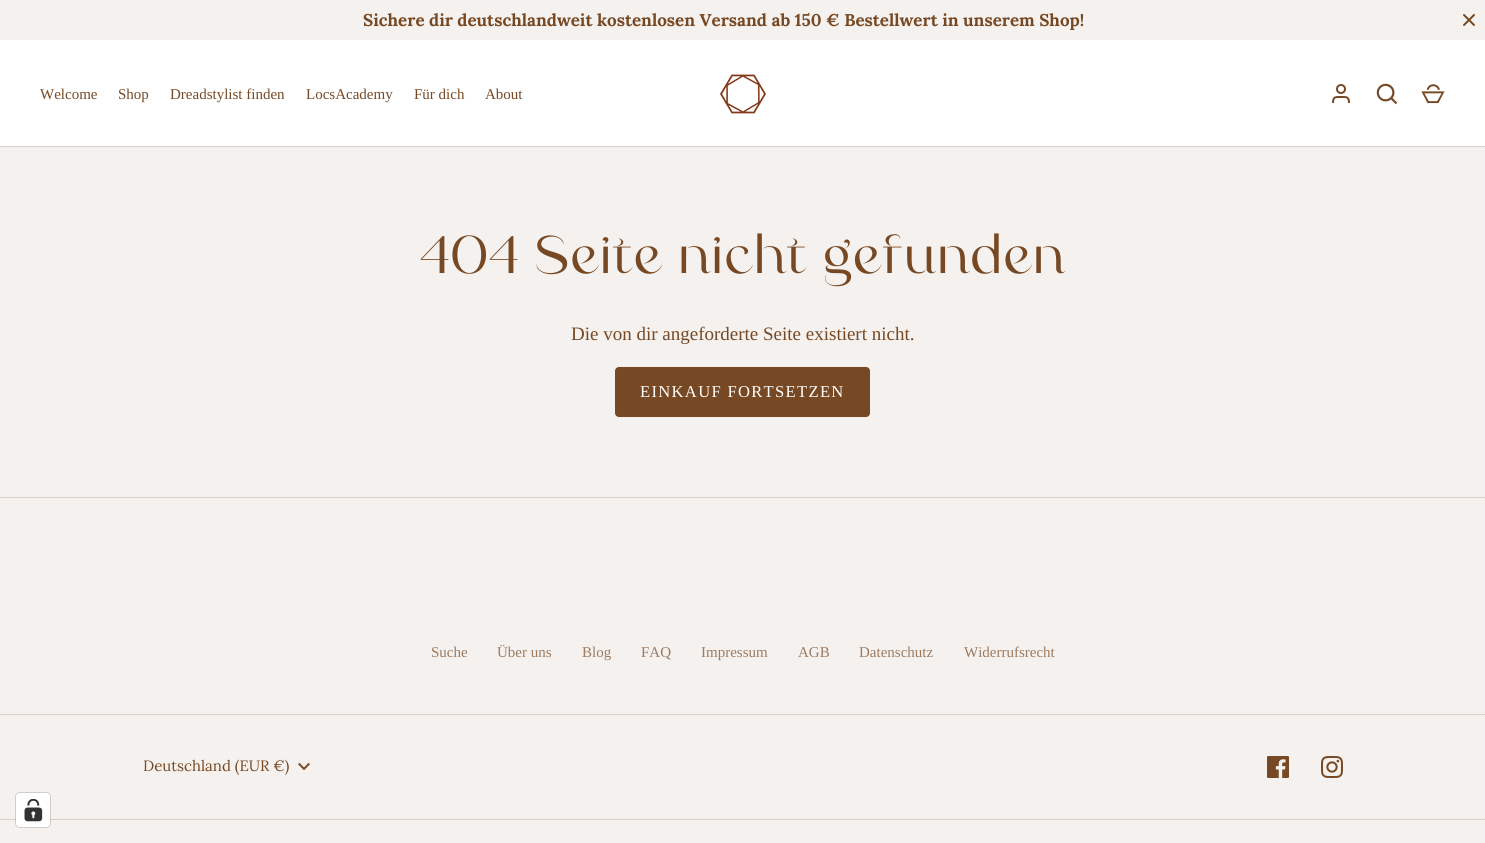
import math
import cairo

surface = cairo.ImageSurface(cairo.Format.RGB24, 1485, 843)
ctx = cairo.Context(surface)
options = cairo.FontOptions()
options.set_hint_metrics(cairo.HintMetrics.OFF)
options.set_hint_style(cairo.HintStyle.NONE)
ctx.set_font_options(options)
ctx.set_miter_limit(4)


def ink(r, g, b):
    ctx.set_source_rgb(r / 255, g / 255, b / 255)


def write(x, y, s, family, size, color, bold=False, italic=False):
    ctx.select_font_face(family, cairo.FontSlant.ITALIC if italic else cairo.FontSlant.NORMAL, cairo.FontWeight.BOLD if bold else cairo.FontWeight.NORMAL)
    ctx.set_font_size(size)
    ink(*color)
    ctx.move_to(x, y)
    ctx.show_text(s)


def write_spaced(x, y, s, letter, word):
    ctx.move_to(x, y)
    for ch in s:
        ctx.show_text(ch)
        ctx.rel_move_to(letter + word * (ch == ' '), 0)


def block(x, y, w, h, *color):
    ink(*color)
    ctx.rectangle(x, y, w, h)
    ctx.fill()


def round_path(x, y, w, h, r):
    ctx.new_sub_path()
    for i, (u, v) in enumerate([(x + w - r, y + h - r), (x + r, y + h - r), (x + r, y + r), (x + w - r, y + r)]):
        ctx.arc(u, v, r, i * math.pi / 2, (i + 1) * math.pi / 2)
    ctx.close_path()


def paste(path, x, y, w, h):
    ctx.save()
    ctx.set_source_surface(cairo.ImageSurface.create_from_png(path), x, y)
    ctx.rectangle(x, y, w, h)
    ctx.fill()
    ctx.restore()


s1 = dict(family="Lora", size=17, color=(118, 73, 36), bold=True)
s2 = dict(family="Liberation Serif", size=15, color=(118, 73, 36))
s3 = dict(family="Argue", size=52.75, color=(118, 73, 36))
s4 = dict(family="Liberation Serif", size=19, color=(118, 73, 36))
s5 = dict(family="Liberation Serif", size=15, color=(156, 123, 97))
s6 = dict(family="Lora", size=15, color=(118, 73, 36))

ink(245, 241, 238)
ctx.paint()
ctx.save()
ctx.rectangle(363, 10, 721, 20)
ctx.clip()
write(363, 26, "Sichere dir deutschlandweit kostenlosen Versand ab 150 € Bestellwert in unserem Shop!", **s1)
ctx.restore()
paste("pic1.png", 1463, 14, 12, 12)
block(0, 40, 1485, 106, 255, 255, 255)
block(0, 146, 1485, 1, 220, 207, 198)
write(40, 99, "Welcome", **s2)
write(118, 99, "Shop", **s2)
write(170, 99, "Dreadstylist finden", **s2)
write(306, 99, "LocsAcademy", **s2)
write(414, 99, "Für dich", **s2)
write(485, 99, "About", **s2)
paste("pic2.png", 720, 74, 46, 40)
ctx.arc(1341, 89, 4, 0, 2 * math.pi)
ctx.stroke()
ctx.new_path()
ctx.move_to(1349, 103)
ctx.curve_to(1349, 96.5, 1346.5, 97, 1341, 97)
ctx.curve_to(1335.5, 97, 1333, 96.5, 1333, 103)
ctx.stroke()
paste("pic3.png", 1376, 83, 22, 22)
paste("pic4.png", 1421, 84, 24, 20)
write(419, 273, "404 Seite nicht gefunden", **s3)
write(571, 340, "Die von dir angeforderte Seite existiert nicht.", **s4)
round_path(615.5, 367.5, 254, 49, 3.5)
ctx.fill_preserve()
ctx.set_line_width(1)
ctx.stroke()
ctx.set_font_size(16.6)
ink(255, 255, 255)
write_spaced(640, 397, "EINKAUF FORTSETZEN", 1.3, 0)
block(0, 497, 1485, 1, 220, 207, 198)
write(431, 657, "Suche", **s5)
write(497, 657, "Über uns", **s5)
write(582, 657, "Blog", **s5)
write(641, 657, "FAQ", **s5)
write(701, 657, "Impressum", **s5)
write(798, 657, "AGB", **s5)
write(859, 657, "Datenschutz", **s5)
write(964, 657, "Widerrufsrecht", **s5)
block(0, 714, 1485, 1, 220, 207, 198)
write(143, 771, "Deutschland (EUR €)", **s6)
paste("pic5.png", 298, 762, 12, 9)
paste("pic6.png", 1267, 756, 22, 22)
paste("pic7.png", 1321, 756, 22, 22)
block(0, 819, 1485, 1, 220, 207, 198)
round_path(15.5, 792.5, 35, 35, 4.5)
ctx.set_source_rgba(0, 0, 0, 0.15)
ctx.stroke()
ink(255, 255, 255)
round_path(16, 793, 34, 34, 4)
ctx.fill()
paste("pic8.png", 24, 799, 19, 23)
surface.write_to_png("screenshot.png")
